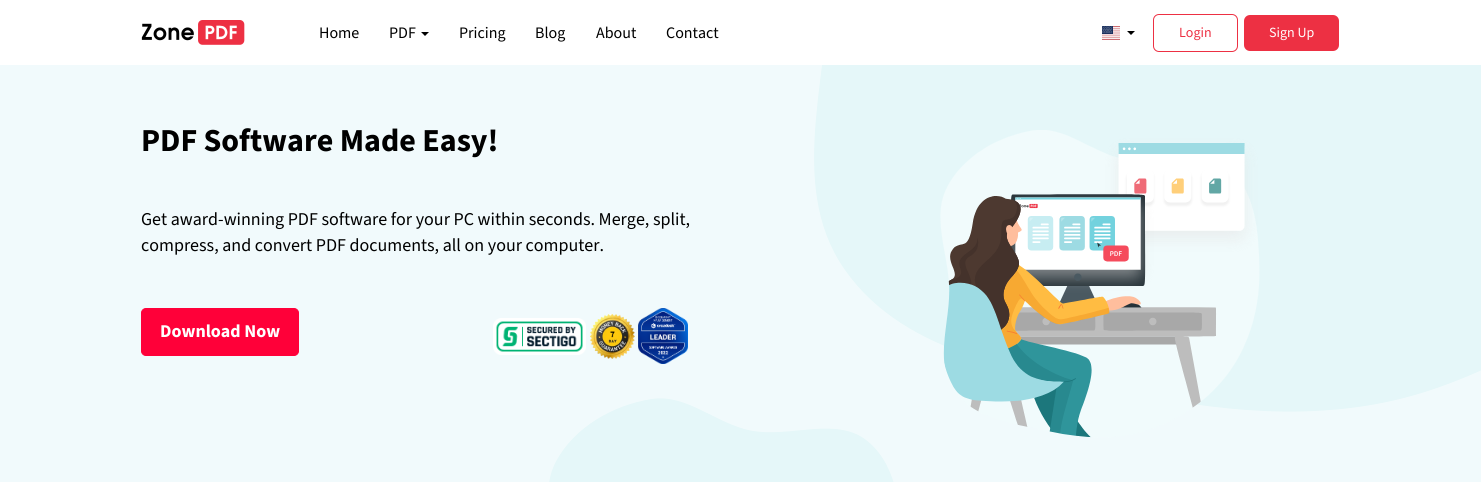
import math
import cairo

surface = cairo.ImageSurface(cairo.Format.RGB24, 1481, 482)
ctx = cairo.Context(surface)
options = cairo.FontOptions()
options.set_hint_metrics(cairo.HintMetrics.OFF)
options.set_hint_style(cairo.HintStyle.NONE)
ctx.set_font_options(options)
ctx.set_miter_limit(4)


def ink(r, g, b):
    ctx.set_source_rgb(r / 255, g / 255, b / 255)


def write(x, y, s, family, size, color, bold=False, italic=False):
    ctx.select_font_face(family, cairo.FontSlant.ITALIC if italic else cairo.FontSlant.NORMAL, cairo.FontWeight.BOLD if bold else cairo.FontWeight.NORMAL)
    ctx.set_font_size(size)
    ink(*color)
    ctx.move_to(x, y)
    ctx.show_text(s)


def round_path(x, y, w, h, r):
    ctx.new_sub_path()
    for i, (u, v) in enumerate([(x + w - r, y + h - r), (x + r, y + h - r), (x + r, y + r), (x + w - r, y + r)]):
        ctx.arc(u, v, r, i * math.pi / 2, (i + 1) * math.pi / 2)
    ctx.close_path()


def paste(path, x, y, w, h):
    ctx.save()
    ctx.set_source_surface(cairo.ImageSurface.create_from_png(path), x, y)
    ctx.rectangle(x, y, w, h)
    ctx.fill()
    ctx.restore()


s1 = dict(family="Source Sans 3", size=16, color=(0, 0, 0))
s2 = dict(family="Source Sans 3", size=14, color=(237, 48, 67))
s3 = dict(family="Source Sans 3", size=14, color=(255, 255, 255))
s4 = dict(family="Source Sans 3", size=32, color=(0, 0, 0), bold=True)
s5 = dict(family="Source Sans 3", size=18, color=(0, 0, 0))
s6 = dict(family="Source Sans 3", size=18, color=(255, 255, 255), bold=True)

ink(255, 255, 255)
ctx.paint()
paste("pic1.png", 141, 20, 104, 25)
write(319, 38, "Home", **s1)
write(389, 38, "PDF", **s1)
ctx.new_path()
ctx.move_to(421, 32)
ctx.line_to(429, 32)
ctx.line_to(425, 36)
ctx.close_path()
ctx.fill()
write(459, 38, "Pricing", **s1)
write(535, 38, "Blog", **s1)
write(596, 38, "About", **s1)
write(666, 38, "Contact", **s1)
paste("pic2.png", 1102, 26, 18, 14)
ctx.new_path()
ctx.move_to(1127, 31)
ctx.line_to(1135, 31)
ctx.line_to(1131, 35)
ctx.close_path()
ctx.fill()
round_path(1153.5, 14.5, 84, 37, 5.5)
ink(237, 48, 67)
ctx.set_line_width(1)
ctx.stroke()
write(1179, 37, "Login", **s2)
round_path(1244, 15, 95, 36, 6)
ctx.fill()
write(1269, 37, "Sign Up", **s3)
paste("pic3.png", 0, 65, 1481, 417)
write(141, 151, "PDF Software Made Easy!", **s4)
write(141, 225, "Get award-winning PDF software for your PC within seconds. Merge, split,", **s5)
write(141, 251, "compress, and convert PDF documents, all on your computer.", **s5)
ink(255, 0, 57)
round_path(141.5, 308.5, 157, 47, 4.5)
ctx.fill_preserve()
ctx.stroke()
write(160, 337, "Download Now", **s6)
paste("pic4.png", 493, 318, 93, 37)
paste("pic5.png", 590, 314, 45, 45)
paste("pic6.png", 638, 308, 50, 56)
paste("pic7.png", 940, 130, 320, 308)
surface.write_to_png("screenshot.png")
